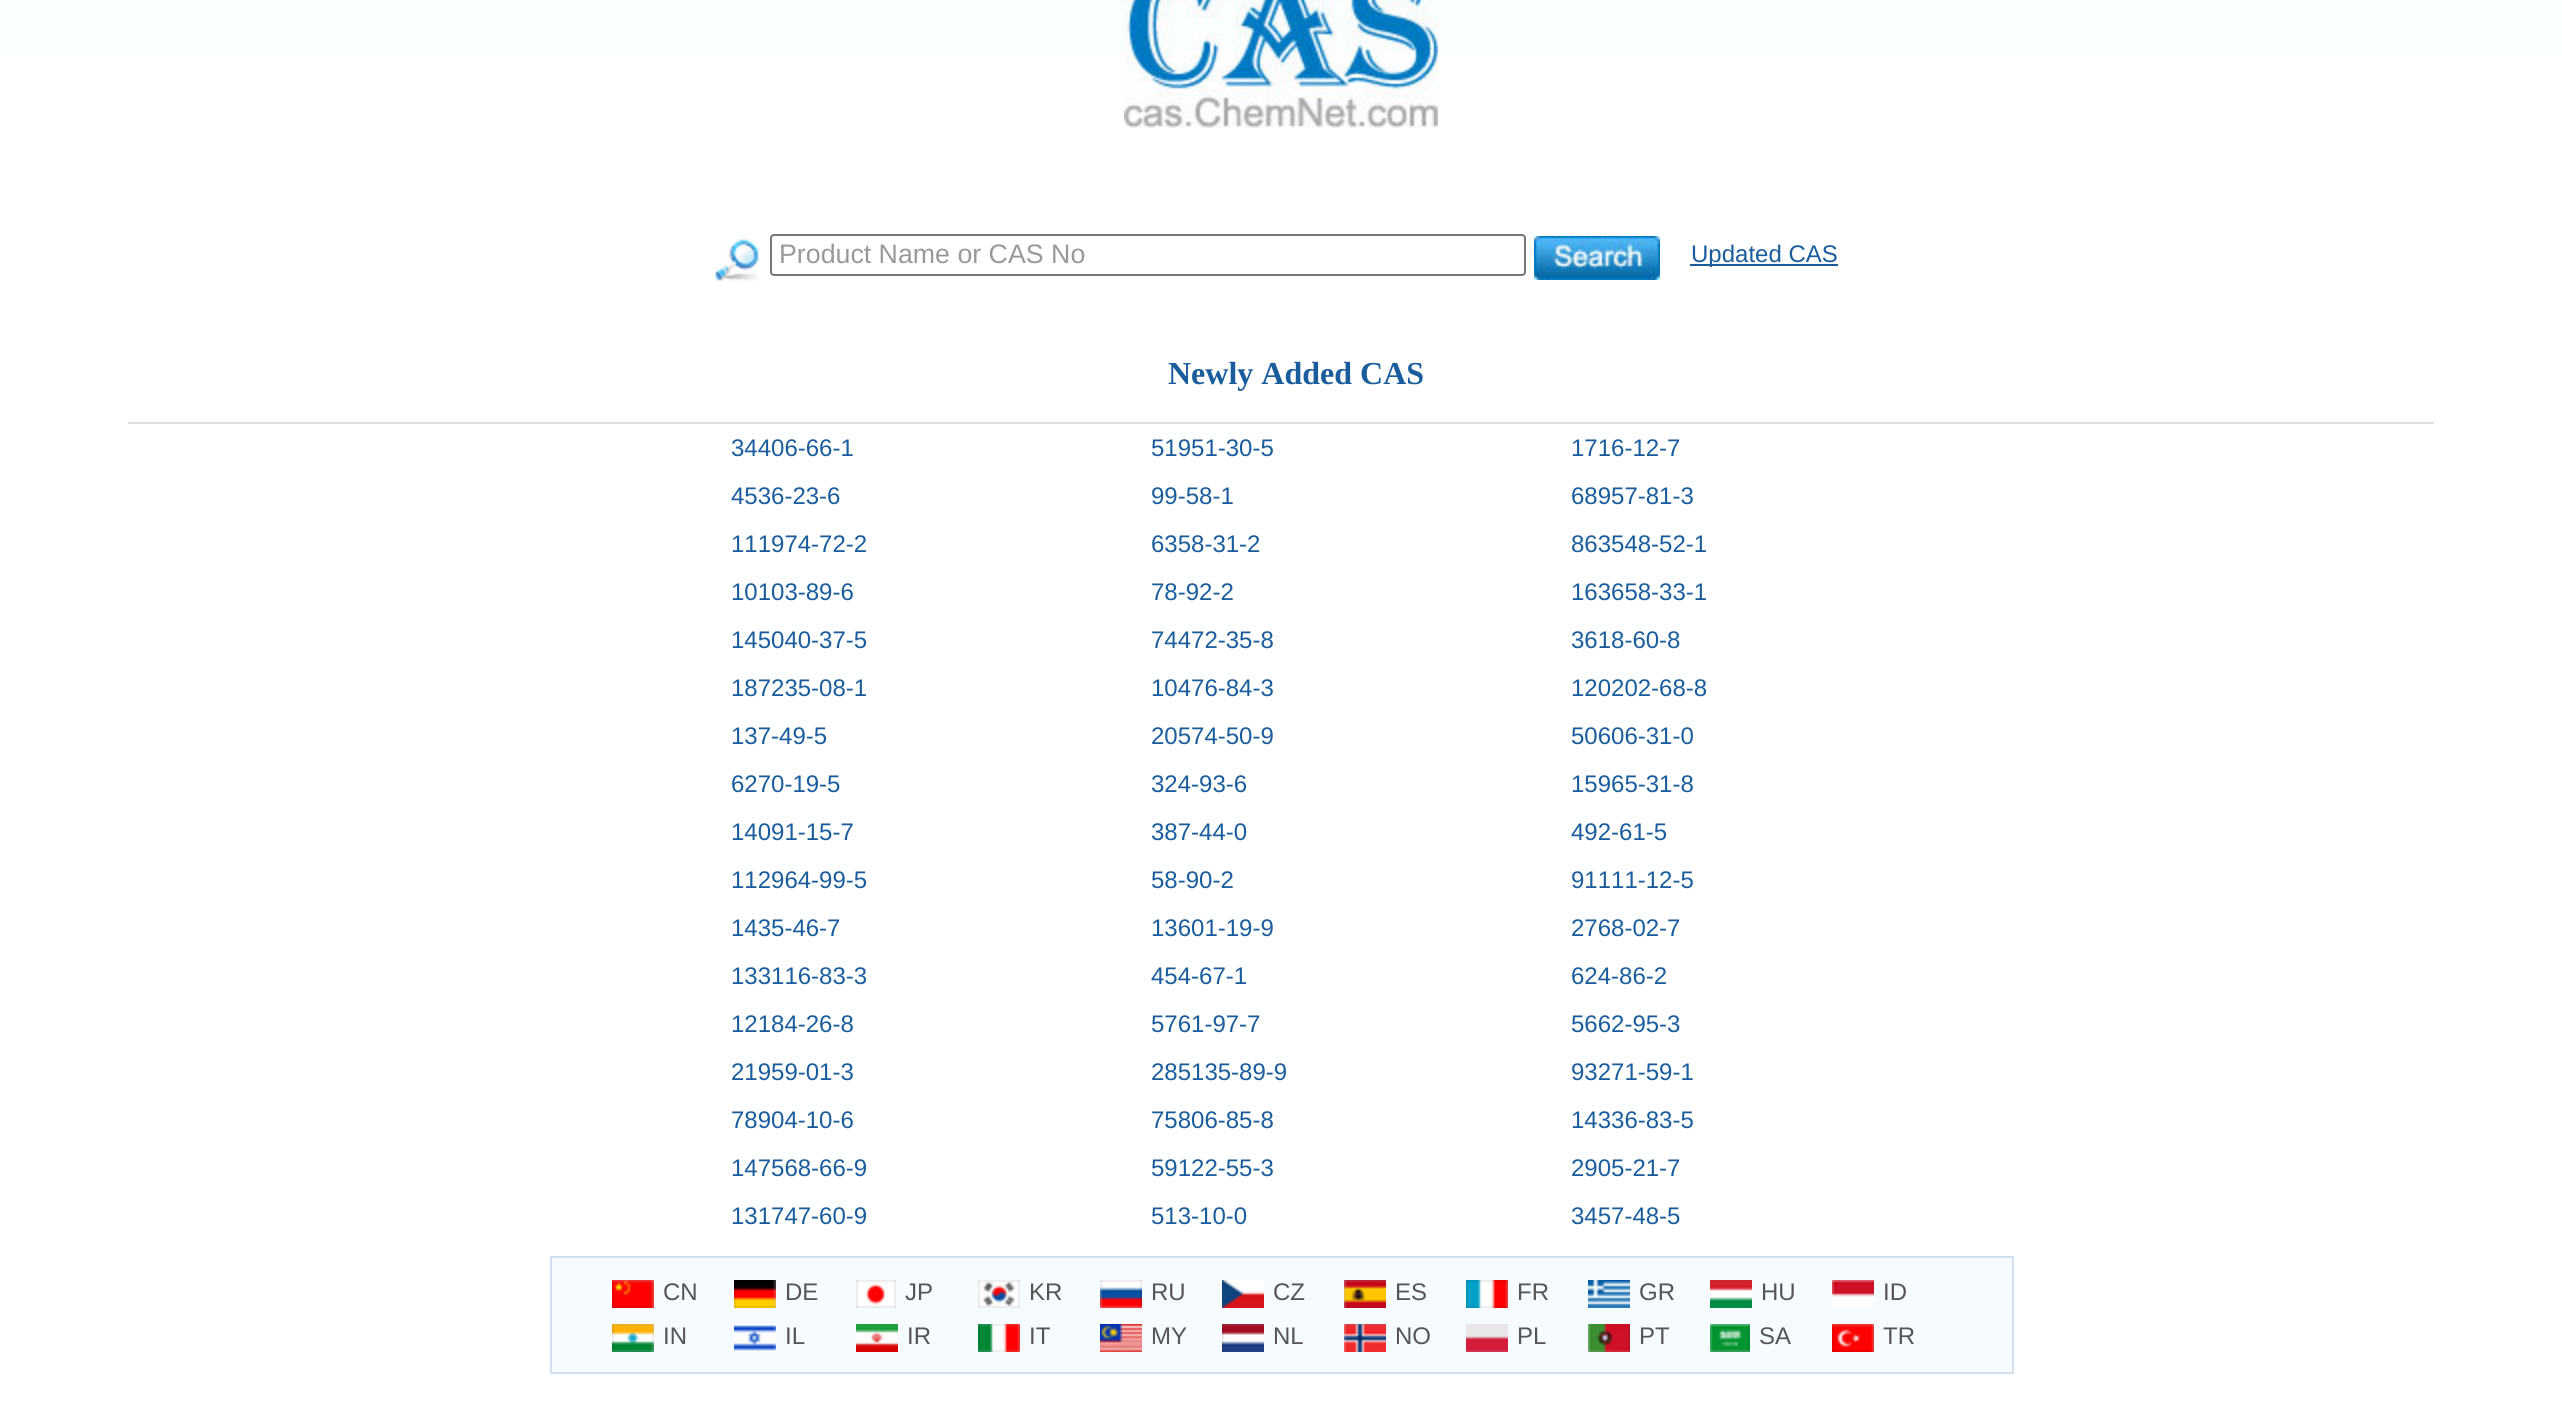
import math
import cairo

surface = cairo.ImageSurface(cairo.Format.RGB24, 2562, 1401)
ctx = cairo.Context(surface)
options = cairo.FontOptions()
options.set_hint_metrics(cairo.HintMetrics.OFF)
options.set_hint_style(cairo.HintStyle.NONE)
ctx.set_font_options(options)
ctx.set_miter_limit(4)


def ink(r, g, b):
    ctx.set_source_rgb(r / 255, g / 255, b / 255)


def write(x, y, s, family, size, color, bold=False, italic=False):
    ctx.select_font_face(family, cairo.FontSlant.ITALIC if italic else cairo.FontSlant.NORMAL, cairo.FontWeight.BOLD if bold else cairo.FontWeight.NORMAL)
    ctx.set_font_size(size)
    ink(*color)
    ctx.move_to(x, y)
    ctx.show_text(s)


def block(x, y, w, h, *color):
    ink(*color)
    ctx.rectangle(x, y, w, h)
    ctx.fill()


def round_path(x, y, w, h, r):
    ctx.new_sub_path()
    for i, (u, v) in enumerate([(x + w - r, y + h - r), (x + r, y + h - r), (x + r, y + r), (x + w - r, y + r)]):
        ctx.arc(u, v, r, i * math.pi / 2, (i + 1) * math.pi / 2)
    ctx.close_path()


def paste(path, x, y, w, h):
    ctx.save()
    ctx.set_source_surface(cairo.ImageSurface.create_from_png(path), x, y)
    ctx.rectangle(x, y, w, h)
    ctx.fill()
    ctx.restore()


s1 = dict(family="Liberation Sans", size=26.75, color=(153, 153, 153))
s2 = dict(family="Liberation Sans", size=24, color=(26, 93, 157))
s3 = dict(family="Liberation Serif", size=32, color=(26, 93, 157), bold=True)
s4 = dict(family="Liberation Sans", size=24, color=(85, 85, 85))

ink(255, 255, 255)
ctx.paint()
block(0, 0, 2562, 52, 250, 254, 255)
paste("pic1.png", 1124, 0, 314, 128)
paste("pic2.png", 715, 239, 44, 42)
round_path(771, 235, 754, 40, 3)
ink(118, 118, 118)
ctx.stroke()
write(779, 263, "Product Name or CAS No", **s1)
paste("pic3.png", 1534, 236, 126, 44)
block(1690, 264, 148, 2, 26, 93, 157)
write(1691, 262, "Updated CAS", **s2)
block(128, 422, 2306, 2, 221, 221, 221)
write(1168, 384, "Newly Added CAS", **s3)
write(731, 456, "34406-66-1", **s2)
write(1151, 456, "51951-30-5", **s2)
write(1571, 456, "1716-12-7", **s2)
write(731, 504, "4536-23-6", **s2)
write(1151, 504, "99-58-1", **s2)
write(1571, 504, "68957-81-3", **s2)
write(731, 552, "111974-72-2", **s2)
write(1151, 552, "6358-31-2", **s2)
write(1571, 552, "863548-52-1", **s2)
write(731, 600, "10103-89-6", **s2)
write(1151, 600, "78-92-2", **s2)
write(1571, 600, "163658-33-1", **s2)
write(731, 648, "145040-37-5", **s2)
write(1151, 648, "74472-35-8", **s2)
write(1571, 648, "3618-60-8", **s2)
write(731, 696, "187235-08-1", **s2)
write(1151, 696, "10476-84-3", **s2)
write(1571, 696, "120202-68-8", **s2)
write(731, 744, "137-49-5", **s2)
write(1151, 744, "20574-50-9", **s2)
write(1571, 744, "50606-31-0", **s2)
write(731, 792, "6270-19-5", **s2)
write(1151, 792, "324-93-6", **s2)
write(1571, 792, "15965-31-8", **s2)
write(731, 840, "14091-15-7", **s2)
write(1151, 840, "387-44-0", **s2)
write(1571, 840, "492-61-5", **s2)
write(731, 888, "112964-99-5", **s2)
write(1151, 888, "58-90-2", **s2)
write(1571, 888, "91111-12-5", **s2)
write(731, 936, "1435-46-7", **s2)
write(1151, 936, "13601-19-9", **s2)
write(1571, 936, "2768-02-7", **s2)
write(731, 984, "133116-83-3", **s2)
write(1151, 984, "454-67-1", **s2)
write(1571, 984, "624-86-2", **s2)
write(731, 1032, "12184-26-8", **s2)
write(1151, 1032, "5761-97-7", **s2)
write(1571, 1032, "5662-95-3", **s2)
write(731, 1080, "21959-01-3", **s2)
write(1151, 1080, "285135-89-9", **s2)
write(1571, 1080, "93271-59-1", **s2)
write(731, 1128, "78904-10-6", **s2)
write(1151, 1128, "75806-85-8", **s2)
write(1571, 1128, "14336-83-5", **s2)
write(731, 1176, "147568-66-9", **s2)
write(1151, 1176, "59122-55-3", **s2)
write(1571, 1176, "2905-21-7", **s2)
write(731, 1224, "131747-60-9", **s2)
write(1151, 1224, "513-10-0", **s2)
write(1571, 1224, "3457-48-5", **s2)
ink(245, 251, 255)
ctx.rectangle(551, 1257, 1462, 116)
ctx.fill_preserve()
ink(210, 223, 238)
ctx.stroke()
paste("pic4.png", 612, 1280, 42, 28)
write(663, 1300, "CN", **s4)
paste("pic5.png", 734, 1280, 42, 28)
write(785, 1300, "DE", **s4)
paste("pic6.png", 856, 1280, 40, 28)
write(905, 1300, "JP", **s4)
paste("pic7.png", 978, 1280, 42, 28)
write(1029, 1300, "KR", **s4)
paste("pic8.png", 1100, 1280, 42, 28)
write(1151, 1300, "RU", **s4)
paste("pic9.png", 1222, 1280, 42, 28)
write(1273, 1300, "CZ", **s4)
paste("pic10.png", 1344, 1280, 42, 28)
write(1395, 1300, "ES", **s4)
paste("pic11.png", 1466, 1280, 42, 28)
write(1517, 1300, "FR", **s4)
paste("pic12.png", 1588, 1280, 42, 28)
write(1639, 1300, "GR", **s4)
paste("pic13.png", 1710, 1280, 42, 28)
write(1761, 1300, "HU", **s4)
paste("pic14.png", 1832, 1280, 42, 28)
write(1883, 1300, "ID", **s4)
paste("pic15.png", 612, 1324, 42, 28)
write(663, 1344, "IN", **s4)
paste("pic16.png", 734, 1324, 42, 28)
write(785, 1344, "IL", **s4)
paste("pic17.png", 856, 1324, 42, 28)
write(907, 1344, "IR", **s4)
paste("pic18.png", 978, 1324, 42, 28)
write(1029, 1344, "IT", **s4)
paste("pic19.png", 1100, 1324, 42, 28)
write(1151, 1344, "MY", **s4)
paste("pic20.png", 1222, 1324, 42, 28)
write(1273, 1344, "NL", **s4)
paste("pic21.png", 1344, 1324, 42, 28)
write(1395, 1344, "NO", **s4)
paste("pic22.png", 1466, 1324, 42, 28)
write(1517, 1344, "PL", **s4)
paste("pic23.png", 1588, 1324, 42, 28)
write(1639, 1344, "PT", **s4)
paste("pic24.png", 1710, 1324, 40, 28)
write(1759, 1344, "SA", **s4)
paste("pic25.png", 1832, 1324, 42, 28)
write(1883, 1344, "TR", **s4)
surface.write_to_png("screenshot.png")
